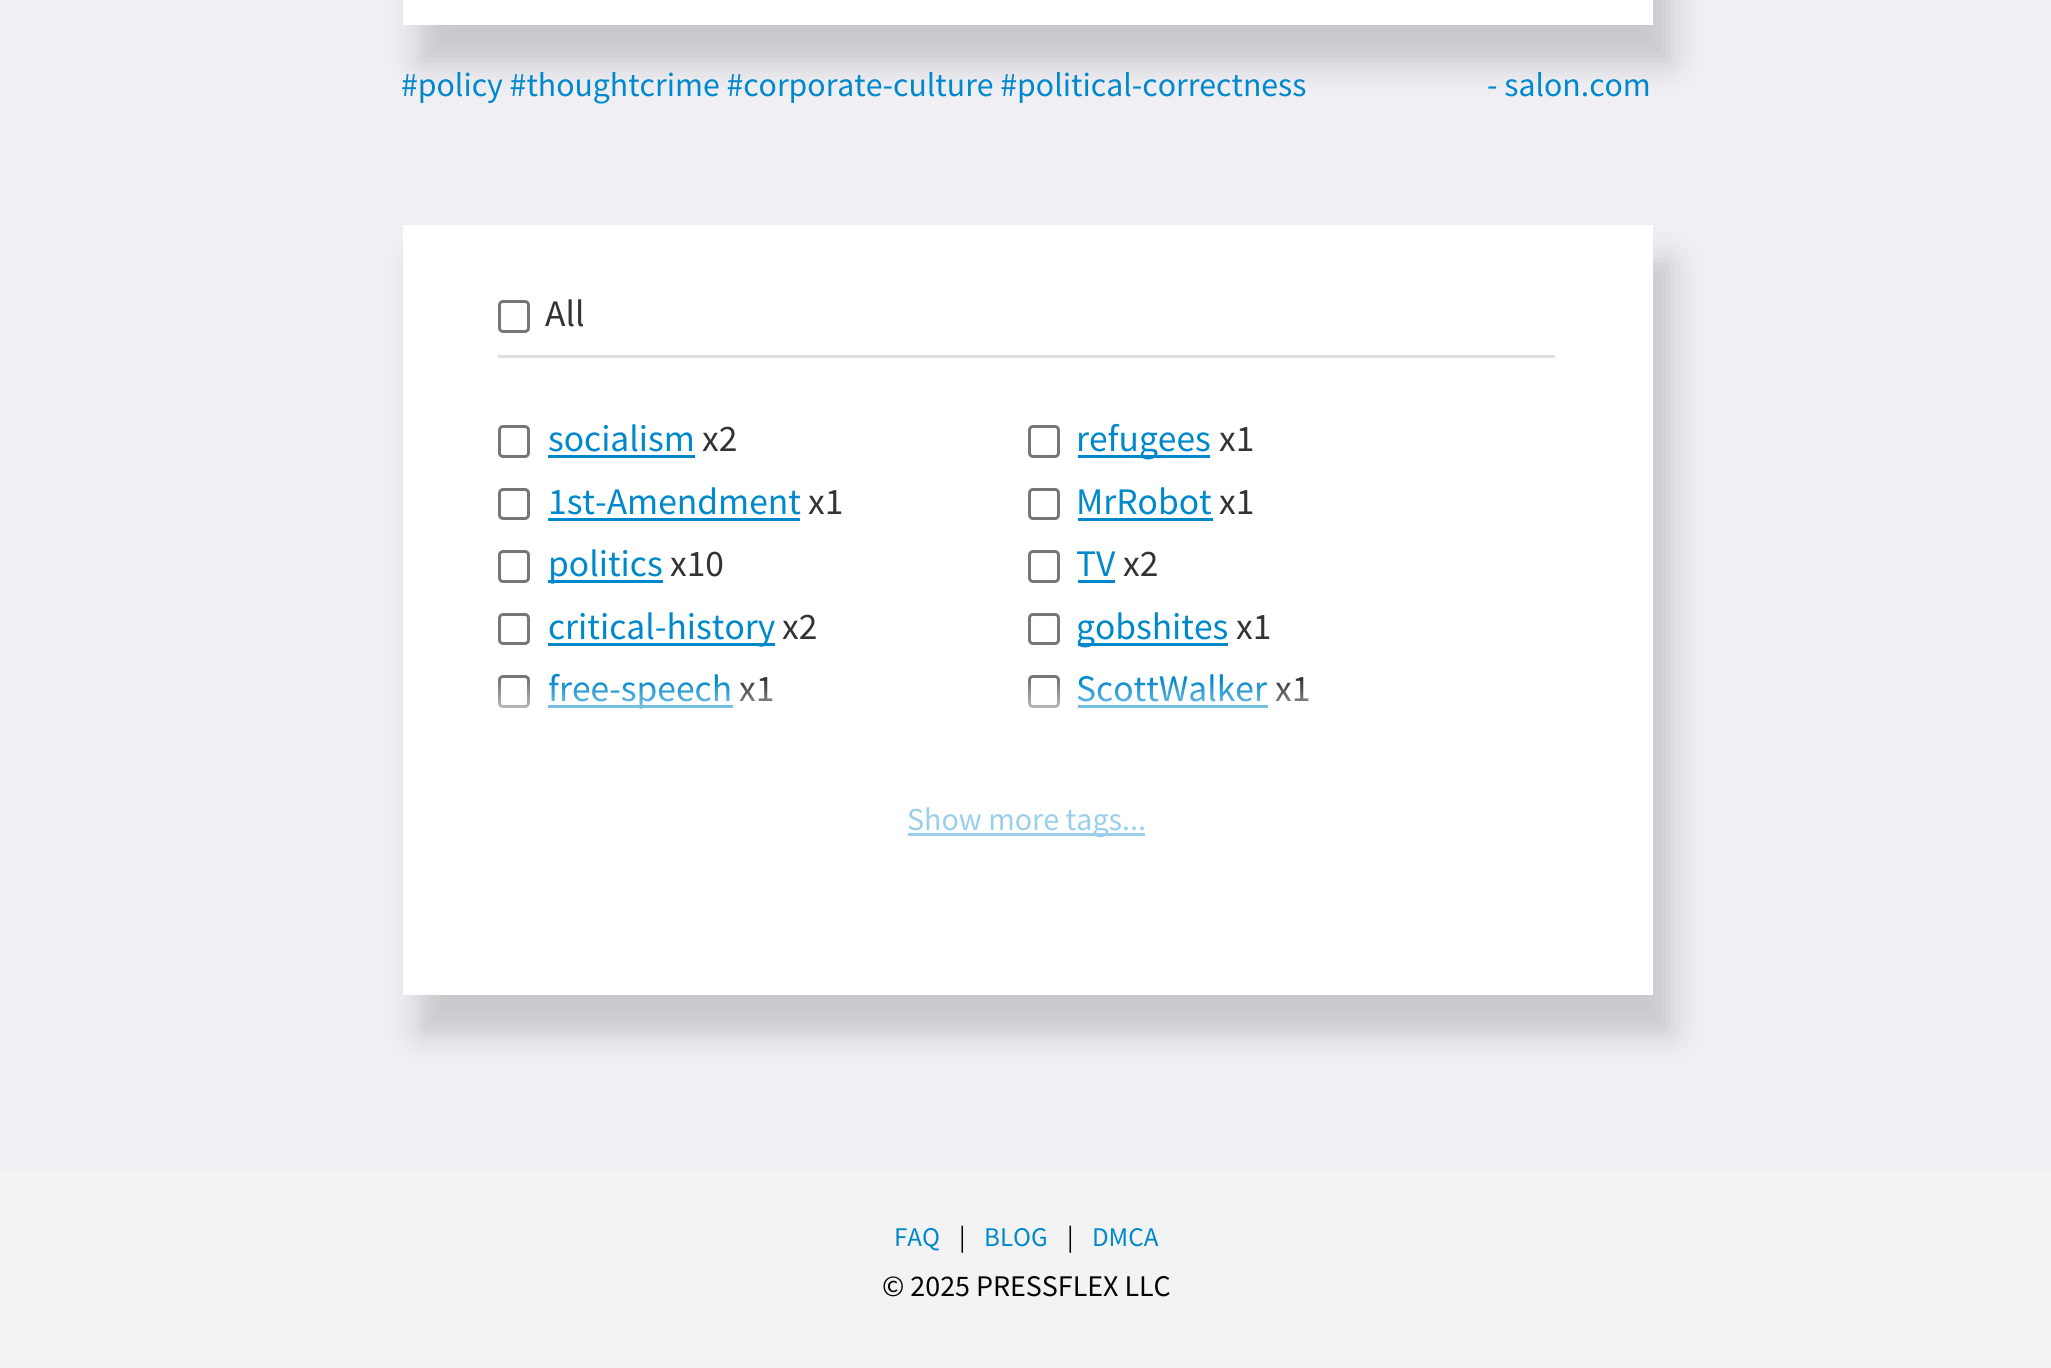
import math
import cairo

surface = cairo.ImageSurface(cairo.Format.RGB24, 2051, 1368)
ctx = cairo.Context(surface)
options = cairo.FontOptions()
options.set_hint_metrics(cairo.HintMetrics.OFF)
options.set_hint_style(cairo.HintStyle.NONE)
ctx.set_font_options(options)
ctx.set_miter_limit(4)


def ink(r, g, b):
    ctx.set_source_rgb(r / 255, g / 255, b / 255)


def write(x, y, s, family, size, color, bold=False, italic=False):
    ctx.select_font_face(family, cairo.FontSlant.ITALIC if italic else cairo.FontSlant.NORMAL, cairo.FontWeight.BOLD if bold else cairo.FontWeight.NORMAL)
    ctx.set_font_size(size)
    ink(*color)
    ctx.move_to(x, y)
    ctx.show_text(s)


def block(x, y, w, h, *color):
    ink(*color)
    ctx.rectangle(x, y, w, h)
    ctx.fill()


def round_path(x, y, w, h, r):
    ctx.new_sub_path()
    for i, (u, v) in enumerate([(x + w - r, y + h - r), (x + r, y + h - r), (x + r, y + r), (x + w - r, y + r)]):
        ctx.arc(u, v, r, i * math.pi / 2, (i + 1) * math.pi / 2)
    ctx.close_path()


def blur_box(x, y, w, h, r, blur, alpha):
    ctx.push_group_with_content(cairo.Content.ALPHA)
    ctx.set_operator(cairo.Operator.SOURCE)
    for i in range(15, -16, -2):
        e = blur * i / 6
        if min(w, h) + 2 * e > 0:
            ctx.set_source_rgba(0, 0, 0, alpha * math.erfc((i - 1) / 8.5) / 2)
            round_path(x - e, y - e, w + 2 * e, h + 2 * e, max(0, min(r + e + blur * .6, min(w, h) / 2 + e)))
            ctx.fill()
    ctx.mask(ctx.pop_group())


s1 = dict(family="Source Sans Pro", size=33.75, color=(0, 136, 204))
s2 = dict(family="Source Sans Pro", size=37.5, color=(51, 51, 51))
s3 = dict(family="Source Sans Pro", size=37.5, color=(0, 136, 204))
s4 = dict(family="Source Sans Pro", size=32, color=(153, 207, 235))
s5 = dict(family="Source Sans Pro", size=27, color=(0, 136, 204))
s6 = dict(family="Source Sans Pro", size=27, color=(4, 4, 4))
s7 = dict(family="Source Sans Pro", size=30, color=(4, 4, 4))

ink(243, 243, 243)
ctx.paint()
block(0, 0, 2051, 1170, 239, 239, 244)
ink(201, 201, 205)
blur_box(418, -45, 1255, 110, 0, 15, 1)
block(403, 0, 1250, 25, 255, 255, 255)
write(401, 96, "#policy #thoughtcrime #corporate-culture #political-correctness", **s1)
write(1487, 96, "- salon.com", **s1)
ink(201, 201, 205)
blur_box(418, 260, 1255, 775, 0, 15, 1)
block(403, 225, 1250, 770, 255, 255, 255)
block(498, 355, 1057, 3, 224, 224, 224)
round_path(499.5, 301.5, 29, 30, 3.5)
ink(118, 118, 118)
ctx.set_line_width(3)
ctx.stroke()
write(545, 326, "All", **s2)
round_path(499.5, 426.5, 29, 30, 3.5)
ink(118, 118, 118)
ctx.stroke()
write(548, 451, "socialism", **s3)
block(548, 455, 147, 3, 0, 136, 204)
write(702, 451, "x2", **s2)
round_path(499.5, 489.5, 29, 29, 3.5)
ink(118, 118, 118)
ctx.stroke()
write(548, 514, "1st-Amendment", **s3)
block(548, 518, 252, 3, 0, 136, 204)
write(808, 514, "x1", **s2)
round_path(499.5, 551.5, 29, 30, 3.5)
ink(118, 118, 118)
ctx.stroke()
block(548, 580, 115, 3, 0, 136, 204)
write(548, 576, "politics", **s3)
write(670, 576, "x10", **s2)
round_path(499.5, 614.5, 29, 29, 3.5)
ink(118, 118, 118)
ctx.stroke()
block(548, 643, 227, 3, 0, 136, 204)
write(548, 639, "critical-history", **s3)
write(782, 639, "x2", **s2)
round_path(499.5, 676.5, 29, 30, 3.5)
ink(118, 118, 118)
ctx.stroke()
block(548, 705, 185, 3, 0, 136, 204)
write(548, 701, "free-speech", **s3)
write(739, 701, "x1", **s2)
round_path(1029.5, 426.5, 29, 30, 3.5)
ink(118, 118, 118)
ctx.stroke()
block(1078, 455, 132, 3, 0, 136, 204)
write(1076, 451, "refugees", **s3)
write(1219, 451, "x1", **s2)
round_path(1029.5, 489.5, 29, 29, 3.5)
ink(118, 118, 118)
ctx.stroke()
write(1076, 514, "MrRobot", **s3)
block(1078, 518, 135, 3, 0, 136, 204)
write(1219, 514, "x1", **s2)
round_path(1029.5, 551.5, 29, 30, 3.5)
ink(118, 118, 118)
ctx.stroke()
write(1076, 576, "TV", **s3)
block(1078, 580, 37, 3, 0, 136, 204)
write(1123, 576, "x2", **s2)
round_path(1029.5, 614.5, 29, 29, 3.5)
ink(118, 118, 118)
ctx.stroke()
block(1078, 643, 150, 3, 0, 136, 204)
write(1076, 639, "gobshites", **s3)
write(1236, 639, "x1", **s2)
round_path(1029.5, 676.5, 29, 30, 3.5)
ink(118, 118, 118)
ctx.stroke()
write(1076, 701, "ScottWalker", **s3)
block(1078, 705, 190, 3, 0, 136, 204)
write(1275, 701, "x1", **s2)
gradient = cairo.LinearGradient(1028, 738, 1028, 680)
gradient.add_color_stop_rgba(0, 1, 1, 1, 1)
gradient.add_color_stop_rgba(1, 1, 1, 1, 0)
ctx.set_source(gradient)
ctx.rectangle(498, 681, 810, 28)
ctx.fill()
block(908, 833, 237, 3, 153, 207, 235)
write(907, 830, "Show more tags...", **s4)
write(894, 1246, "FAQ", **s5)
write(959, 1246, "|", **s6)
write(984, 1246, "BLOG", **s5)
write(1067, 1246, "|", **s6)
write(1092, 1246, "DMCA", **s5)
write(882, 1296, "© 2025 PRESSFLEX LLC", **s7)
surface.write_to_png("screenshot.png")
